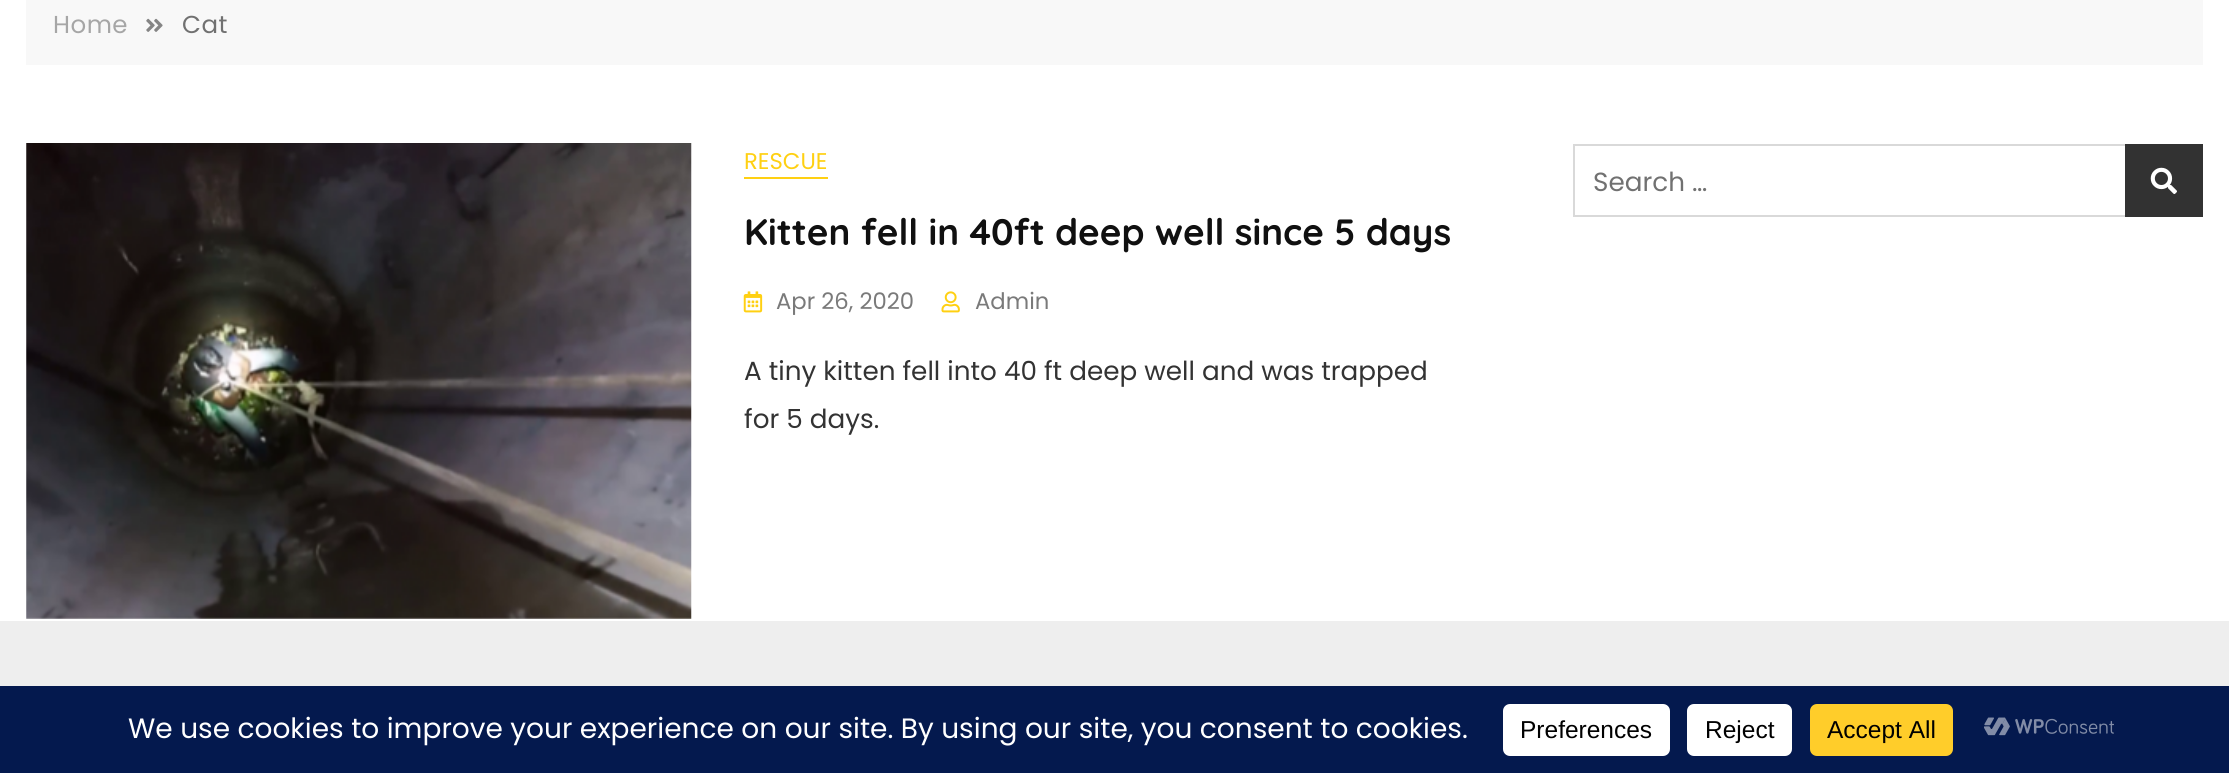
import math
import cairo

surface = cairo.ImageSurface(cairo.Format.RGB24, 2229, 773)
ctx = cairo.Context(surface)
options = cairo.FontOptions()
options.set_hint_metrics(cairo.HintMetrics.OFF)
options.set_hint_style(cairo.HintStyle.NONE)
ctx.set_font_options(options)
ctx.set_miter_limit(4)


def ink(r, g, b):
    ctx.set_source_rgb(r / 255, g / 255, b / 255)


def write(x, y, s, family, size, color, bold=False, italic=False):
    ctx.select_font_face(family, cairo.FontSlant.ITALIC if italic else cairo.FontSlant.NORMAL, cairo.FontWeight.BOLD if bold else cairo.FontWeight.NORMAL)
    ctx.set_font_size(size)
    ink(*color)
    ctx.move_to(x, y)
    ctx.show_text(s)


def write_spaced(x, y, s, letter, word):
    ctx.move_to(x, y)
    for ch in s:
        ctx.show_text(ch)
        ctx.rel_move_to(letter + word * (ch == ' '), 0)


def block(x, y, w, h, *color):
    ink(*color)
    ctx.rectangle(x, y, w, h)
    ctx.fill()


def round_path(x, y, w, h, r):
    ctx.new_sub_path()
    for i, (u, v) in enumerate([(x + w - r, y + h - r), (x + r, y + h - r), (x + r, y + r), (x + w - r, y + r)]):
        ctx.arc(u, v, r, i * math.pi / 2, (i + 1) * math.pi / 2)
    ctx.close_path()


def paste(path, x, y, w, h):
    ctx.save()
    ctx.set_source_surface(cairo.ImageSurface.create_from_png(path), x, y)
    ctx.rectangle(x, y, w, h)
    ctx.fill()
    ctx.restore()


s1 = dict(family="Poppins", size=22.75, color=(255, 208, 18))
s2 = dict(family="Quicksand", size=36.75, color=(16, 16, 16), bold=True)
s3 = dict(family="Poppins", size=22.75, color=(122, 122, 122))
s4 = dict(family="Poppins", size=26.25, color=(51, 51, 51))
s5 = dict(family="Poppins", size=26.25, color=(113, 113, 113))
s6 = dict(family="Poppins", size=28, color=(255, 255, 255))
s7 = dict(family="Liberation Sans", size=24.5, color=(0, 0, 0))

ink(255, 255, 255)
ctx.paint()
block(26, 0, 2177, 65, 248, 248, 248)
ctx.select_font_face("Poppins")
ctx.set_font_size(24.5)
ink(166, 166, 166)
write_spaced(53, 33, "Home", 0.5, 0)
paste("pic1.png", 146, 18, 17, 14)
ink(113, 113, 113)
write_spaced(182, 33, "Cat", 0.5, 0)
paste("pic2.png", 26, 143, 666, 476)
write(744, 169, "RESCUE", **s1)
block(744, 177, 84, 2, 255, 208, 18)
write(744, 245, "Kitten fell in 40ft deep well since 5 days", **s2)
paste("pic3.png", 743, 291, 20, 22)
write(776, 309, "Apr 26, 2020", **s3)
paste("pic4.png", 941, 291, 19, 22)
write(975, 309, "Admin", **s3)
write(744, 380, "A tiny kitten fell into 40 ft deep well and was trapped", **s4)
write(744, 428, "for 5 days.", **s4)
ctx.rectangle(1574, 145, 628, 71)
ink(217, 217, 217)
ctx.stroke()
write(1593, 191, "Search …", **s5)
block(2125, 144, 78, 73, 50, 50, 50)
paste("pic5.png", 2150, 167, 27, 27)
block(0, 621, 2229, 65, 238, 238, 238)
block(0, 686, 2229, 87, 4, 25, 78)
write(128, 738, "We use cookies to improve your experience on our site. By using our site, you consent to cookies.", **s6)
round_path(1503, 704, 167, 52, 7)
ctx.fill()
write(1520, 738, "Preferences", **s7)
ink(255, 255, 255)
round_path(1687, 704, 105, 52, 7)
ctx.fill()
write(1705, 738, "Reject", **s7)
ink(255, 205, 42)
round_path(1810, 704, 143, 52, 7)
ctx.fill()
write(1827, 738, "Accept All", **s7)
paste("pic6.png", 1984, 717, 130, 19)
surface.write_to_png("screenshot.png")
